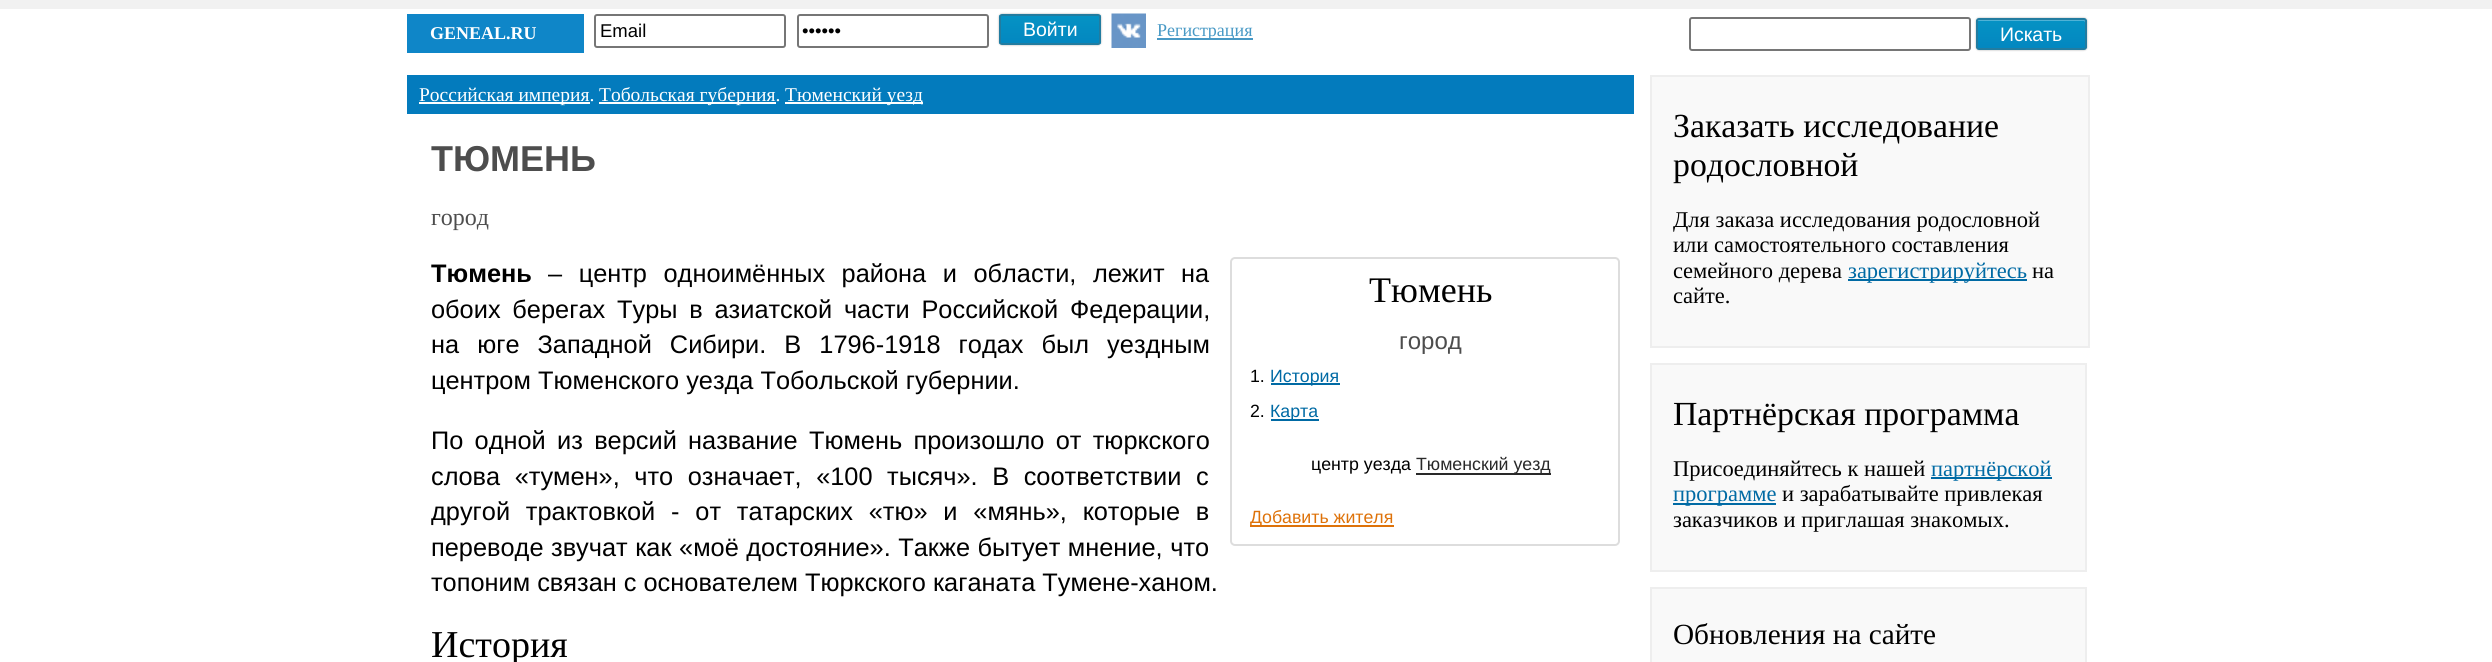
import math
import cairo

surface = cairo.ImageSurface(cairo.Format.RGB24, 2492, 662)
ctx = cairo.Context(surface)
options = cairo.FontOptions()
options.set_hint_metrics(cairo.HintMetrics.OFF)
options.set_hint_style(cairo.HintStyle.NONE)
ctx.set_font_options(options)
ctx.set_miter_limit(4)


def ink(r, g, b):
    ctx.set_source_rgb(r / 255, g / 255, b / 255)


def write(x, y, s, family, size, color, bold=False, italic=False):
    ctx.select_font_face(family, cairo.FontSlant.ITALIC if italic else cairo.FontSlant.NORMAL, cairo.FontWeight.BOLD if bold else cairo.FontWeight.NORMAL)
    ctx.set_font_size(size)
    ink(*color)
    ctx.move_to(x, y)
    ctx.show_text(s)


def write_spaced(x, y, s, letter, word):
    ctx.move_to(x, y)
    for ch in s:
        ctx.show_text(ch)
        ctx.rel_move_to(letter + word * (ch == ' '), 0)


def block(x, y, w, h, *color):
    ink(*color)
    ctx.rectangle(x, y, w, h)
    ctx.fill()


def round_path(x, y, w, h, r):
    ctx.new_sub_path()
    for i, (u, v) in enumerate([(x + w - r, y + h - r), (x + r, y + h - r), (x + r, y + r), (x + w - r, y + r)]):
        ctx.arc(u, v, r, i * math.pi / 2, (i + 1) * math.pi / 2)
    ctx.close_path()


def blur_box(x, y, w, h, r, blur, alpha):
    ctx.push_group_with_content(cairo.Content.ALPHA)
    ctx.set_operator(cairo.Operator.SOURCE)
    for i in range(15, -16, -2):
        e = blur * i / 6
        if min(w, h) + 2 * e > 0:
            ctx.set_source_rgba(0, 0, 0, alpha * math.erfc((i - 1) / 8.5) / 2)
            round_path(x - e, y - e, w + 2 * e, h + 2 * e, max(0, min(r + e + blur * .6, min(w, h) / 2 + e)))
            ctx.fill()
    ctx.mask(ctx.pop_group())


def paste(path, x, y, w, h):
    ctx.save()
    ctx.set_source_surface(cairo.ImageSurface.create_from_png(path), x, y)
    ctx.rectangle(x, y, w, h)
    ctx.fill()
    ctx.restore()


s1 = dict(family="Liberation Serif", size=18, color=(255, 255, 255), bold=True)
s2 = dict(family="Liberation Sans", size=18.5, color=(0, 0, 0))
s3 = dict(family="Liberation Sans", size=19.5, color=(255, 255, 255))
s4 = dict(family="Liberation Serif", size=18, color=(72, 153, 197))
s5 = dict(family="Liberation Serif", size=19.5, color=(255, 255, 255))
s6 = dict(family="Liberation Sans", size=36, color=(77, 77, 77), bold=True)
s7 = dict(family="Liberation Serif", size=24, color=(77, 77, 77))
s8 = dict(family="Liberation Sans", size=25.35, color=(0, 0, 0), bold=True)
s9 = dict(family="Liberation Sans", size=25.35, color=(0, 0, 0))
s10 = dict(family="Liberation Serif", size=36, color=(0, 0, 0))
s11 = dict(family="Liberation Sans", size=24, color=(77, 77, 77))
s12 = dict(family="Liberation Sans", size=17.75, color=(0, 0, 0))
s13 = dict(family="Liberation Sans", size=17.75, color=(0, 106, 164))
s14 = dict(family="Liberation Sans", size=17.75, color=(41, 41, 41))
s15 = dict(family="Liberation Sans", size=17.75, color=(222, 114, 9))
s16 = dict(family="Liberation Serif", size=38, color=(0, 0, 0))
s17 = dict(family="Liberation Serif", size=33.75, color=(0, 0, 0))
s18 = dict(family="Liberation Serif", size=22.5, color=(0, 0, 0))
s19 = dict(family="Liberation Serif", size=22.5, color=(0, 106, 164))
s20 = dict(family="Liberation Serif", size=29.25, color=(0, 0, 0))

ink(255, 255, 255)
ctx.paint()
block(0, 0, 2492, 9, 241, 241, 241)
block(407, 14, 177, 39, 15, 134, 200)
write(430, 39, "GENEAL.RU", **s1)
round_path(595, 15, 190, 32, 2)
ink(118, 118, 118)
ctx.stroke()
write(600, 37, "Email", **s2)
round_path(798, 15, 190, 32, 2)
ink(118, 118, 118)
ctx.stroke()
write(802, 37, "••••••", **s2)
ink(0, 0, 0)
blur_box(999, 14, 102, 31, 3, 1, 0.3)
ctx.save()
round_path(999, 14, 102, 31, 3)
ctx.clip()
gradient = cairo.LinearGradient(1050, 15, 1050, 44)
gradient.add_color_stop_rgba(0, 0.02, 0.576, 0.769, 1)
gradient.add_color_stop_rgba(1, 0.012, 0.529, 0.753, 1)
ctx.set_source(gradient)
ctx.rectangle(999, 15, 102, 29)
ctx.fill()
ctx.restore()
round_path(1000, 15, 100, 29, 2)
ink(34, 124, 160)
ctx.stroke()
write(1023, 36, "Войти", **s3)
paste("pic1.png", 1111, 13, 35, 35)
block(1157, 38, 96, 2, 72, 153, 197)
write(1157, 36, "Регистрация", **s4)
round_path(1690, 18, 280, 32, 2)
ink(118, 118, 118)
ctx.stroke()
ink(0, 0, 0)
blur_box(1976, 18, 111, 32, 3, 1, 0.3)
ctx.save()
round_path(1976, 18, 111, 32, 3)
ctx.clip()
gradient = cairo.LinearGradient(2031, 19, 2031, 48)
gradient.add_color_stop_rgba(0, 0.02, 0.576, 0.769, 1)
gradient.add_color_stop_rgba(1, 0.012, 0.529, 0.753, 1)
ctx.set_source(gradient)
ctx.rectangle(1976, 20, 111, 28)
ctx.fill()
ctx.restore()
ctx.set_source_rgba(1, 1, 1, 0.3)
ctx.new_path()
ctx.move_to(1978, 21)
ctx.line_to(2084, 21)
ctx.line_to(2085, 22)
ctx.line_to(2085, 20)
ctx.line_to(2084, 20)
ctx.line_to(1996, 20)
ctx.curve_to(1996, 20, 1977, 16, 1977, 22)
ctx.close_path()
ctx.fill()
round_path(1977, 19, 109, 30, 2)
ink(34, 124, 160)
ctx.stroke()
write(2000, 41, "Искать", **s3)
block(407, 75, 1227, 39, 3, 123, 189)
block(419, 102, 171, 2, 255, 255, 255)
write(419, 101, "Российская империя.", **s5)
block(599, 102, 177, 2, 255, 255, 255)
write(599, 101, "Тобольская губерния.", **s5)
block(785, 102, 138, 2, 255, 255, 255)
write(785, 101, "Тюменский уезд", **s5)
write(431, 171, "ТЮМЕНЬ", **s6)
write(431, 225, "город", **s7)
write(431, 282, "Тюмень", **s8)
ctx.select_font_face("Liberation Sans")
write_spaced(548, 282, "– центр одноимённых района и области, лежит на", 0, 9.5)
write_spaced(431, 318, "обоих берегах Туры в азиатской части Российской Федерации,", 0, 4.75)
write_spaced(431, 353, "на юге Западной Сибири. В 1796-1918 годах был уездным", 0, 11)
write(431, 389, "центром Тюменского уезда Тобольской губернии.", **s9)
round_path(1231, 258, 388, 287, 4)
ink(221, 221, 221)
ctx.stroke()
write(1369, 302, "Тюмень", **s10)
write(1399, 349, "город", **s11)
write(1250, 382, "1.", **s12)
block(1271, 383, 69, 2, 0, 106, 164)
write(1270, 382, "История", **s13)
write(1250, 417, "2.", **s12)
block(1271, 419, 48, 2, 0, 106, 164)
write(1270, 417, "Карта", **s13)
write(1311, 470, "центр уезда", **s12)
block(1416, 473, 135, 2, 41, 41, 41)
write(1416, 470, "Тюменский уезд", **s14)
block(1250, 525, 144, 2, 222, 114, 9)
write(1250, 523, "Добавить жителя", **s15)
ctx.set_font_size(25.35)
ink(0, 0, 0)
write_spaced(431, 449, "По одной из версий название Тюмень произошло от тюркского", 0, 4.25)
write_spaced(431, 485, "слова «тумен», что означает, «100 тысяч». В соответствии с", 0, 7.5)
write_spaced(431, 520, "другой трактовкой - от татарских «тю» и «мянь», которые в", 0, 8.75)
write_spaced(431, 556, "переводе звучат как «моё достояние». Также бытует мнение, что", 0, 0.5)
write(431, 591, "топоним связан с основателем Тюркского каганата Тумене-ханом.", **s9)
write(431, 657, "История", **s16)
ink(249, 249, 249)
ctx.rectangle(1651, 76, 438, 271)
ctx.fill_preserve()
ink(238, 238, 238)
ctx.stroke()
write(1673, 137, "Заказать исследование", **s17)
write(1673, 176, "родословной", **s17)
write(1673, 227, "Для заказа исследования родословной", **s18)
write(1673, 252, "или самостоятельного составления", **s18)
write(1673, 278, "семейного дерева", **s18)
block(1848, 279, 179, 2, 0, 106, 164)
write(1848, 278, "зарегистрируйтесь", **s19)
write(2032, 278, "на", **s18)
write(1673, 303, "сайте.", **s18)
ink(249, 249, 249)
ctx.rectangle(1651, 364, 435, 207)
ctx.fill_preserve()
ink(238, 238, 238)
ctx.stroke()
write(1673, 425, "Партнёрская программа", **s17)
write(1673, 476, "Присоединяйтесь к нашей", **s18)
block(1931, 477, 121, 2, 0, 106, 164)
write(1931, 476, "партнёрской", **s19)
block(1673, 503, 103, 2, 0, 106, 164)
write(1673, 501, "программе", **s19)
write(1782, 501, "и зарабатывайте привлекая", **s18)
write(1673, 527, "заказчиков и приглашая знакомых.", **s18)
ink(249, 249, 249)
ctx.rectangle(1651, 588, 435, 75)
ctx.fill_preserve()
ink(238, 238, 238)
ctx.stroke()
write(1673, 644, "Обновления на сайте", **s20)
surface.write_to_png("screenshot.png")
